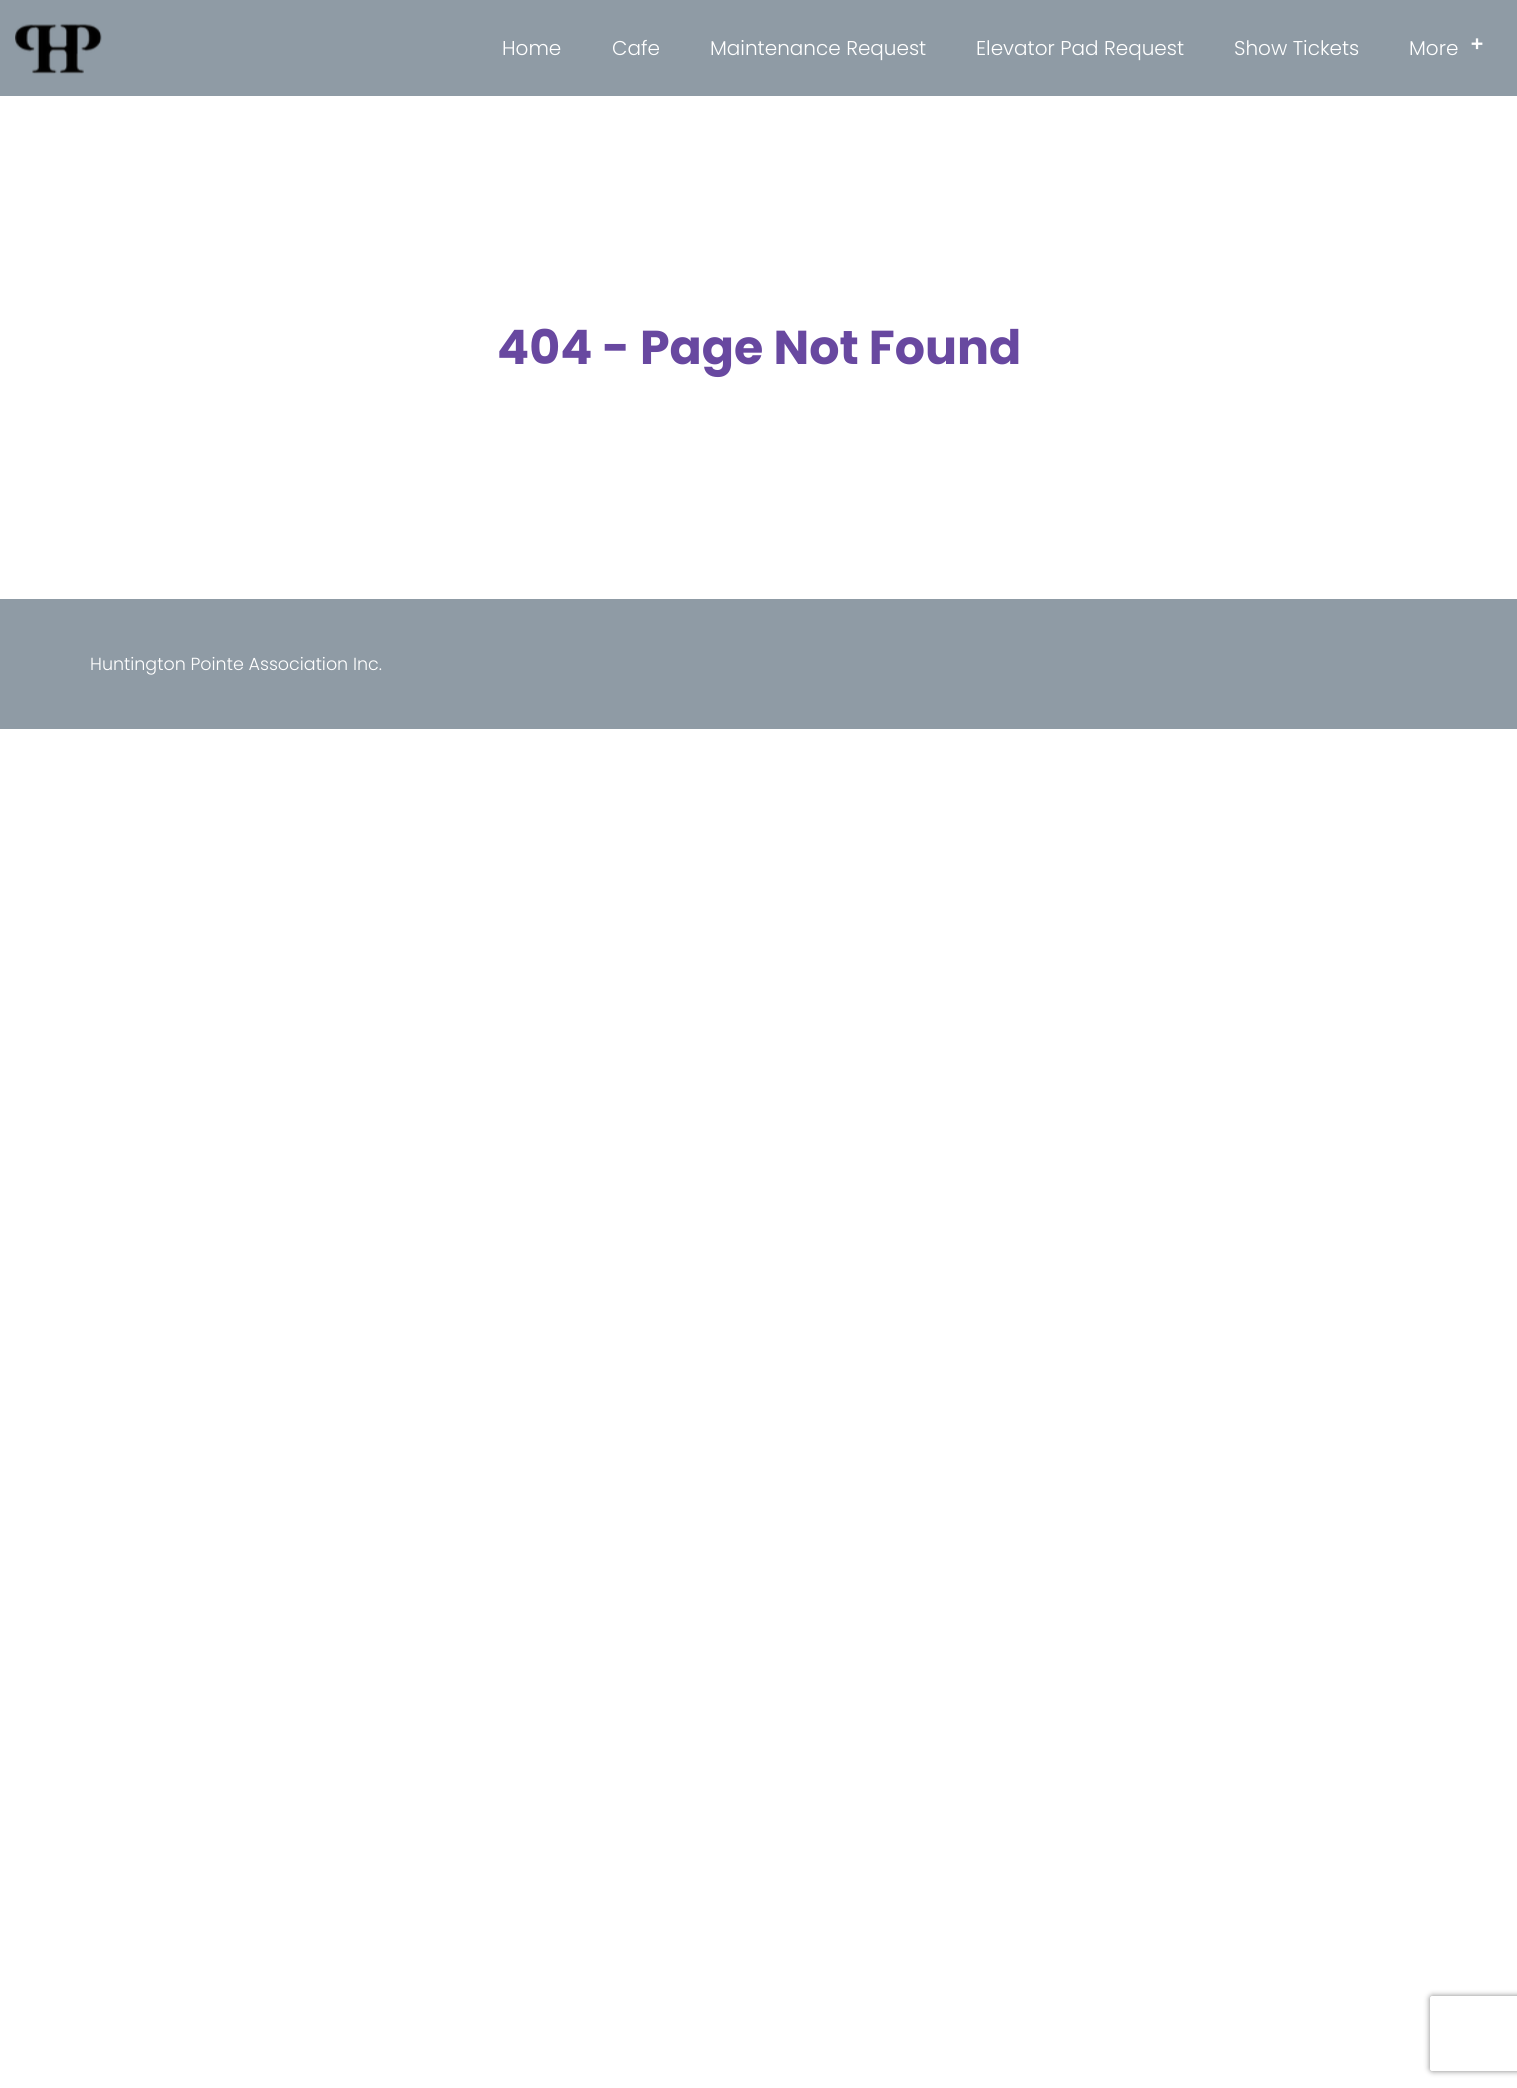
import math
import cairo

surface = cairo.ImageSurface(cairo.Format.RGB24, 1517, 2088)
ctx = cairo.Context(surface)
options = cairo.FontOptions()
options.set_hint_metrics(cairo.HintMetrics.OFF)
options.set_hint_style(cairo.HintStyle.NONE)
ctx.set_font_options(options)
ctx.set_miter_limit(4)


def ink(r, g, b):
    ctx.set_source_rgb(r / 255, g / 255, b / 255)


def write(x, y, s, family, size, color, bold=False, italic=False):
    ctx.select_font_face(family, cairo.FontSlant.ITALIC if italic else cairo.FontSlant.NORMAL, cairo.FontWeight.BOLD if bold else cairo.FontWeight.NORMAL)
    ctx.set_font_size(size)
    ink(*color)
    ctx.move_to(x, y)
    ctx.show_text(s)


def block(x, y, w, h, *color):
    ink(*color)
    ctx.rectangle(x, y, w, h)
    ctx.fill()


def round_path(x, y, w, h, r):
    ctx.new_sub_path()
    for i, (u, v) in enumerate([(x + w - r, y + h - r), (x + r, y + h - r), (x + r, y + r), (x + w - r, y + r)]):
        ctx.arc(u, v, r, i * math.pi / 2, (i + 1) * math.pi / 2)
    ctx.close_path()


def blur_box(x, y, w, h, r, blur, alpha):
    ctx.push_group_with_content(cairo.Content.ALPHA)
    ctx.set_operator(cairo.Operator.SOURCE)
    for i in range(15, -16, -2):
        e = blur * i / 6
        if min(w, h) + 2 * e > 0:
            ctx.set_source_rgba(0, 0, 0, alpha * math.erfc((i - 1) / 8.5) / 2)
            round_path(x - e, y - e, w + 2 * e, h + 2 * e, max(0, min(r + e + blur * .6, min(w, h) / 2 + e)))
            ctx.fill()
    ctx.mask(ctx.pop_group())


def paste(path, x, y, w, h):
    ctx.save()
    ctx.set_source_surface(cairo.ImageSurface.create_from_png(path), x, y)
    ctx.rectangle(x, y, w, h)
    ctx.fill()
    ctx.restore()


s1 = dict(family="Poppins Light", size=20, color=(255, 255, 255))
s2 = dict(family="DejaVu Sans Mono", size=20, color=(255, 255, 255), bold=True)
s3 = dict(family="Poppins", size=47.5, color=(104, 72, 160), bold=True)
s4 = dict(family="Poppins Light", size=17.5, color=(255, 255, 255))

ink(255, 255, 255)
ctx.paint()
block(0, 0, 1517, 96, 143, 155, 165)
paste("pic1.png", 15, 23, 87, 51)
write(502, 55, "Home", **s1)
write(612, 55, "Cafe", **s1)
write(710, 55, "Maintenance Request", **s1)
write(976, 55, "Elevator Pad Request", **s1)
write(1234, 55, "Show Tickets", **s1)
write(1409, 55, "More", **s1)
write(1471, 50, "+", **s2)
write(497, 364, "404 - Page Not Found", **s3)
block(0, 599, 1517, 130, 143, 155, 165)
write(90, 670, "Huntington Pointe Association Inc.", **s4)
ctx.save()
ctx.set_fill_rule(cairo.FillRule.EVEN_ODD)
ctx.new_path()
ctx.move_to(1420, 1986)
ctx.line_to(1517, 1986)
ctx.line_to(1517, 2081)
ctx.line_to(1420, 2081)
ctx.close_path()
ctx.move_to(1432.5, 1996)
ctx.line_to(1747.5, 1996)
ctx.curve_to(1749, 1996, 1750, 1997, 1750, 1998.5)
ctx.line_to(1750, 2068.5)
ctx.curve_to(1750, 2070, 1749, 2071, 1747.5, 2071)
ctx.line_to(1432.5, 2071)
ctx.curve_to(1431, 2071, 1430, 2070, 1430, 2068.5)
ctx.line_to(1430, 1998.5)
ctx.curve_to(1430, 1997, 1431, 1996, 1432.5, 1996)
ctx.close_path()
ctx.clip()
ink(128, 128, 128)
blur_box(1430, 1996, 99, 75, 2.5, 3, 1)
ctx.restore()
surface.write_to_png("screenshot.png")
